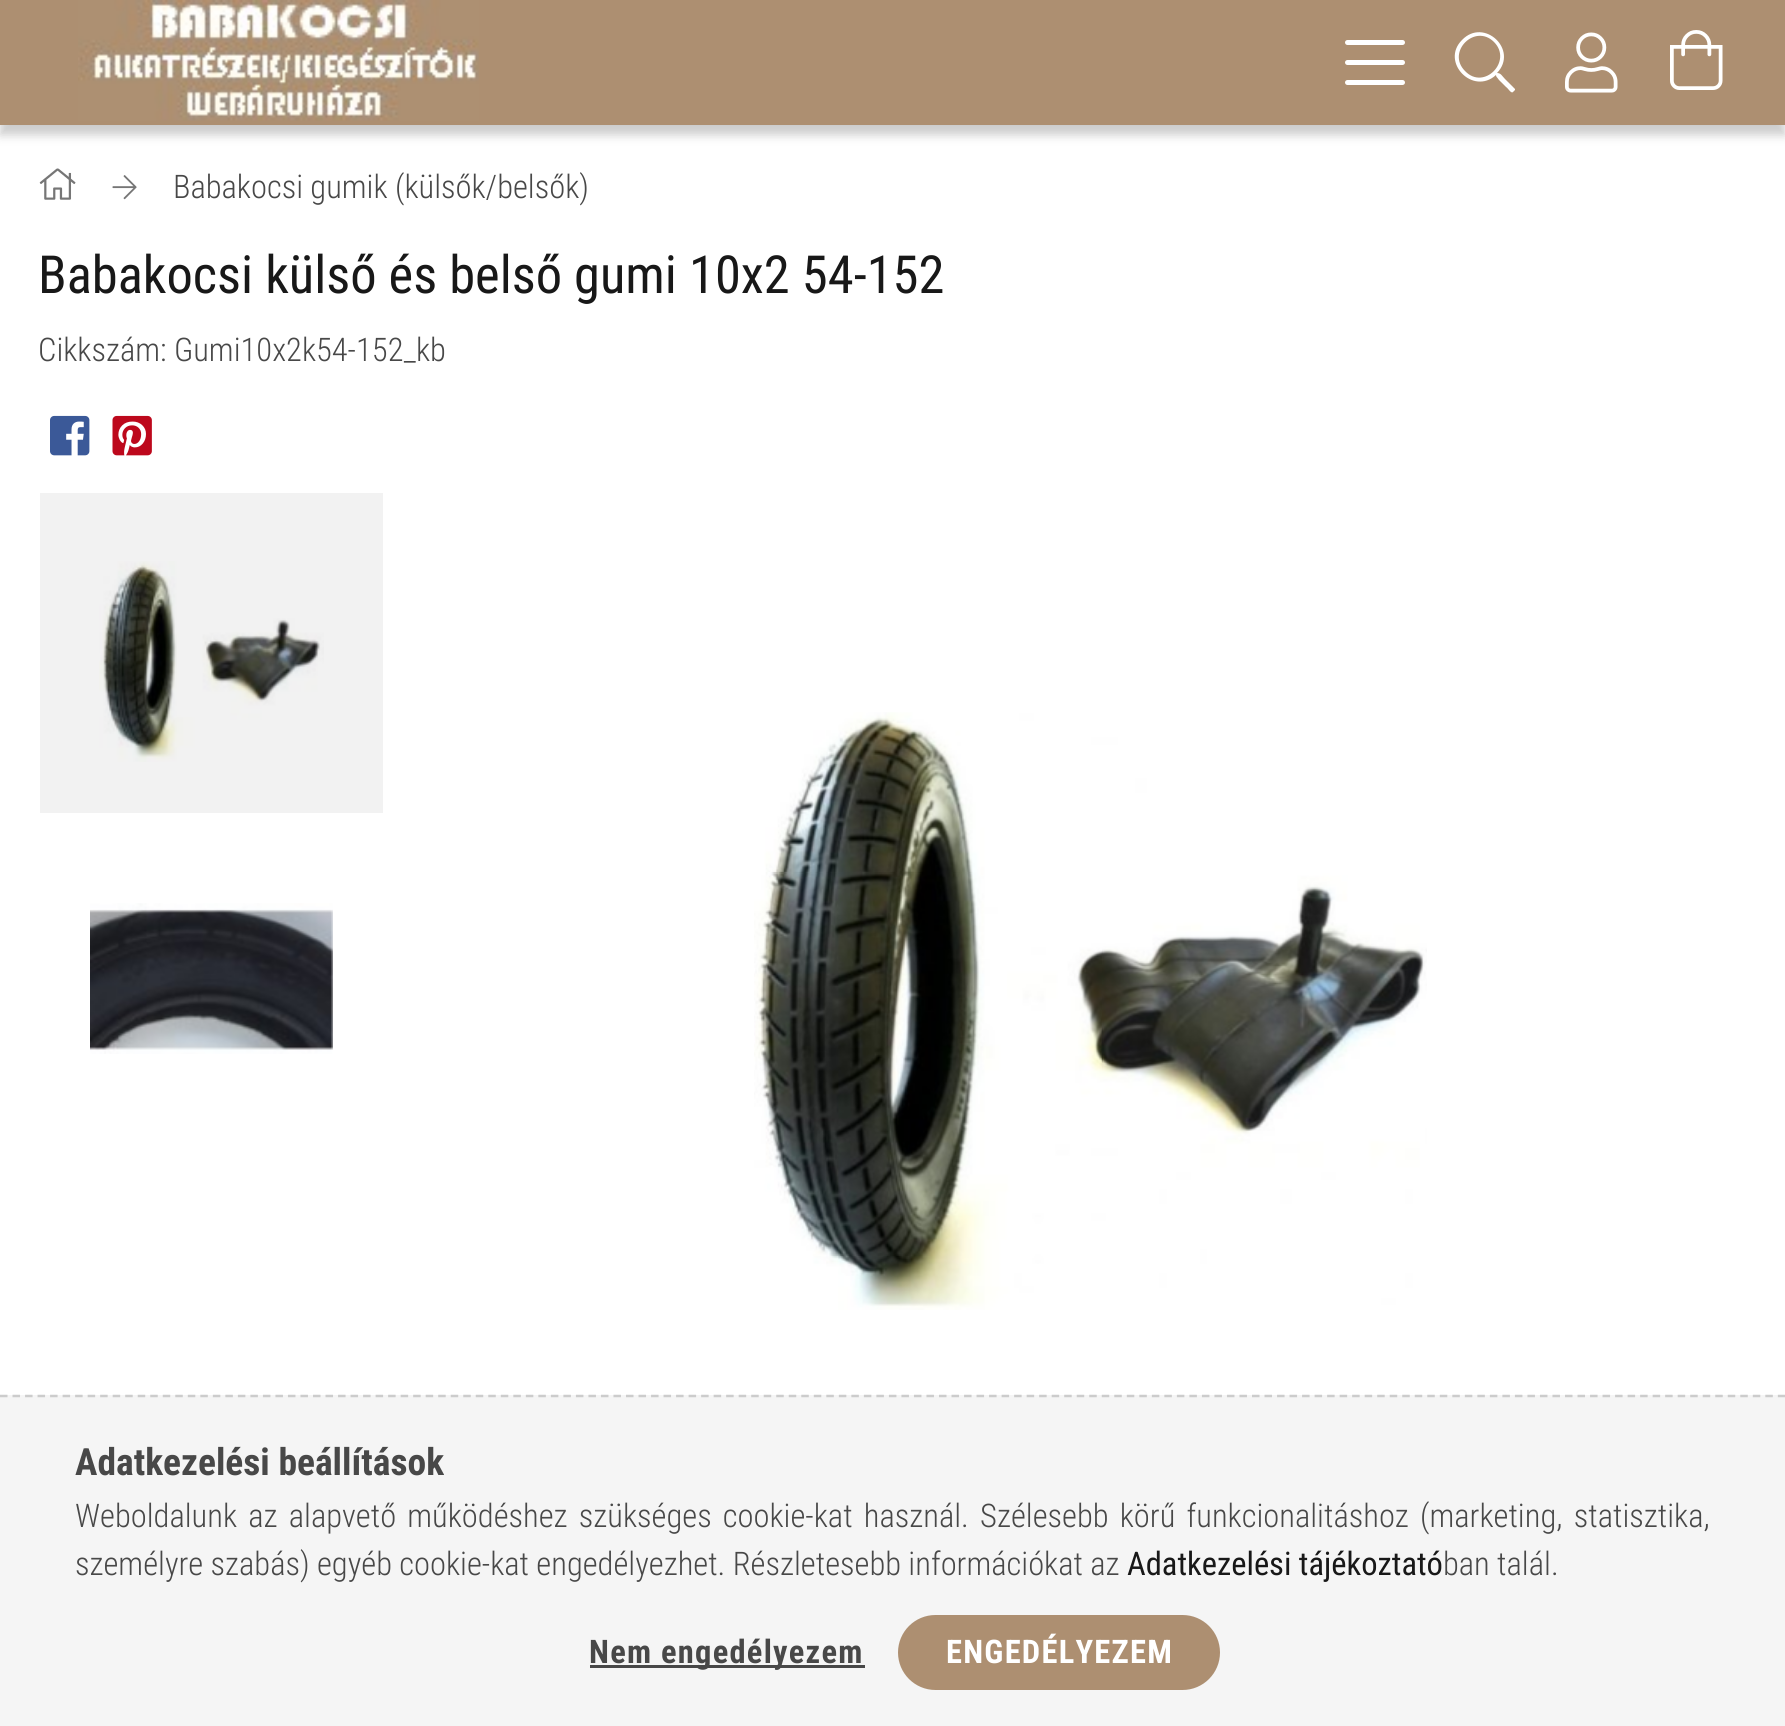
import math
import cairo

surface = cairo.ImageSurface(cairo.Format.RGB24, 1785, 1726)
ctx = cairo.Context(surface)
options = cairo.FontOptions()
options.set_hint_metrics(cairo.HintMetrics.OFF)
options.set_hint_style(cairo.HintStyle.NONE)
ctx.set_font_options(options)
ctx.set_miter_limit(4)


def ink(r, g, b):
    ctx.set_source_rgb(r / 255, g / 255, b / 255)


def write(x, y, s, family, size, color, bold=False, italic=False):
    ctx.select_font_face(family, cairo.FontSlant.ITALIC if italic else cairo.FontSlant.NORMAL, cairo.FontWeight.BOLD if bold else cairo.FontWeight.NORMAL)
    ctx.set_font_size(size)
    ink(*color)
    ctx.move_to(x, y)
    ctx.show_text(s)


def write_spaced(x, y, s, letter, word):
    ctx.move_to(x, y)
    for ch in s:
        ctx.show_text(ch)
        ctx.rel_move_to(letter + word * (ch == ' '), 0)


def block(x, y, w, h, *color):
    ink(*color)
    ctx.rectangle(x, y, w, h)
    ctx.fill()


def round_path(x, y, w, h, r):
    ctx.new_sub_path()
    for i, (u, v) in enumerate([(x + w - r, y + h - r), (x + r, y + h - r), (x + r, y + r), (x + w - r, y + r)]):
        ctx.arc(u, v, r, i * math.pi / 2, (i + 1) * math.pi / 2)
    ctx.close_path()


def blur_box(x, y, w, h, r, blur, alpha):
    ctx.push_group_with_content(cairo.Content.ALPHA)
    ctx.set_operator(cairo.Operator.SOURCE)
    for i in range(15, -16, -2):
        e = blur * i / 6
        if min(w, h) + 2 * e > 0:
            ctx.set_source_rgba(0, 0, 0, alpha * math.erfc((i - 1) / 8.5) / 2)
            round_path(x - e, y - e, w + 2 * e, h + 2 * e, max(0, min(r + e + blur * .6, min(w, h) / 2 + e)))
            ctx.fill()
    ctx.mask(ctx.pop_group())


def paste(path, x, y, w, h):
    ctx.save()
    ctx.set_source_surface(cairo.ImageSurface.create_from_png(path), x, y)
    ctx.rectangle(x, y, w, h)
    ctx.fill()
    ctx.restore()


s1 = dict(family="Roboto Condensed Light", size=32.5, color=(72, 72, 72))
s2 = dict(family="Roboto Condensed", size=52.5, color=(24, 24, 24))
s3 = dict(family="Roboto Condensed", size=37.5, color=(72, 72, 72), bold=True)
s4 = dict(family="Roboto Condensed", size=32.5, color=(24, 24, 24))

ink(255, 255, 255)
ctx.paint()
block(40, 493, 343, 320, 242, 242, 242)
ink(0, 0, 0)
blur_box(0, 10, 1785, 125, 0, 5, 0.2)
block(0, 0, 1785, 125, 173, 143, 113)
paste("pic1.png", 78, 0, 401, 121)
ink(255, 255, 255)
round_path(1345, 40, 60, 5, 2.5)
ctx.fill()
round_path(1345, 60, 60, 5, 2.5)
ctx.fill()
round_path(1345, 80, 60, 5, 2.5)
ctx.fill()
ctx.new_path()
ctx.move_to(1515, 89)
ctx.line_to(1515, 90)
ctx.line_to(1513, 92)
ctx.curve_to(1511, 94, 1508, 88, 1506, 87)
ctx.line_to(1499, 80)
ctx.curve_to(1497, 77, 1496, 77, 1496, 75)
ctx.curve_to(1473, 96, 1440, 62, 1462, 40)
ctx.curve_to(1484, 17, 1519, 50, 1497, 73)
ctx.curve_to(1501, 73, 1502, 76, 1505, 79)
ctx.close_path()
ctx.move_to(1465, 71)
ctx.curve_to(1484, 91, 1513, 61, 1494, 42)
ctx.curve_to(1475, 23, 1446, 52, 1465, 71)
ctx.close_path()
ctx.fill()
paste("pic2.png", 1565, 32, 53, 61)
paste("pic3.png", 1670, 30, 53, 60)
paste("pic4.png", 39, 168, 37, 32)
paste("pic5.png", 112, 175, 25, 25)
write(173, 198, "Babakocsi gumik (külsők/belsők)", **s1)
write(38, 293, "Babakocsi külső és belső gumi 10x2 54-152", **s2)
write(38, 361, "Cikkszám: Gumi10x2k54-152_kb", **s1)
paste("pic6.png", 50, 415, 40, 41)
paste("pic7.png", 112, 415, 40, 41)
paste("pic8.png", 99, 561, 225, 201)
paste("pic9.png", 90, 903, 243, 151)
paste("pic10.png", 754, 712, 673, 598)
block(0, 1395, 1785, 331, 245, 245, 245)
ctx.new_path()
ctx.move_to(0, 1396)
ctx.line_to(1785, 1396)
ink(204, 204, 204)
ctx.set_line_width(2.5)
ctx.set_dash([7.5, 5.02])
ctx.stroke()
write(75, 1475, "Adatkezelési beállítások", **s3)
ctx.select_font_face("Roboto Condensed Light")
ctx.set_font_size(32.5)
write_spaced(75, 1527, "Weboldalunk az alapvető működéshez szükséges cookie-kat használ. Szélesebb körű funkcionalitáshoz (marketing, statisztika,", 0, 3.9)
write(75, 1575, "személyre szabás) egyéb cookie-kat engedélyezhet. Részletesebb információkat az", **s1)
write(1127, 1575, "Adatkezelési tájékoztató", **s4)
write(1443, 1575, "ban talál.", **s1)
block(590, 1665, 275, 3, 72, 72, 72)
ctx.select_font_face("Roboto Condensed", cairo.FontSlant.NORMAL, cairo.FontWeight.BOLD)
write_spaced(589, 1663, "Nem engedélyezem", 1.25, 0)
ink(173, 143, 113)
round_path(899.5, 1616.5, 319, 72, 36)
ctx.fill_preserve()
ctx.set_line_width(3)
ctx.set_dash([])
ctx.stroke()
ink(255, 255, 255)
write_spaced(946, 1663, "ENGEDÉLYEZEM", 1.25, 0)
surface.write_to_png("screenshot.png")
